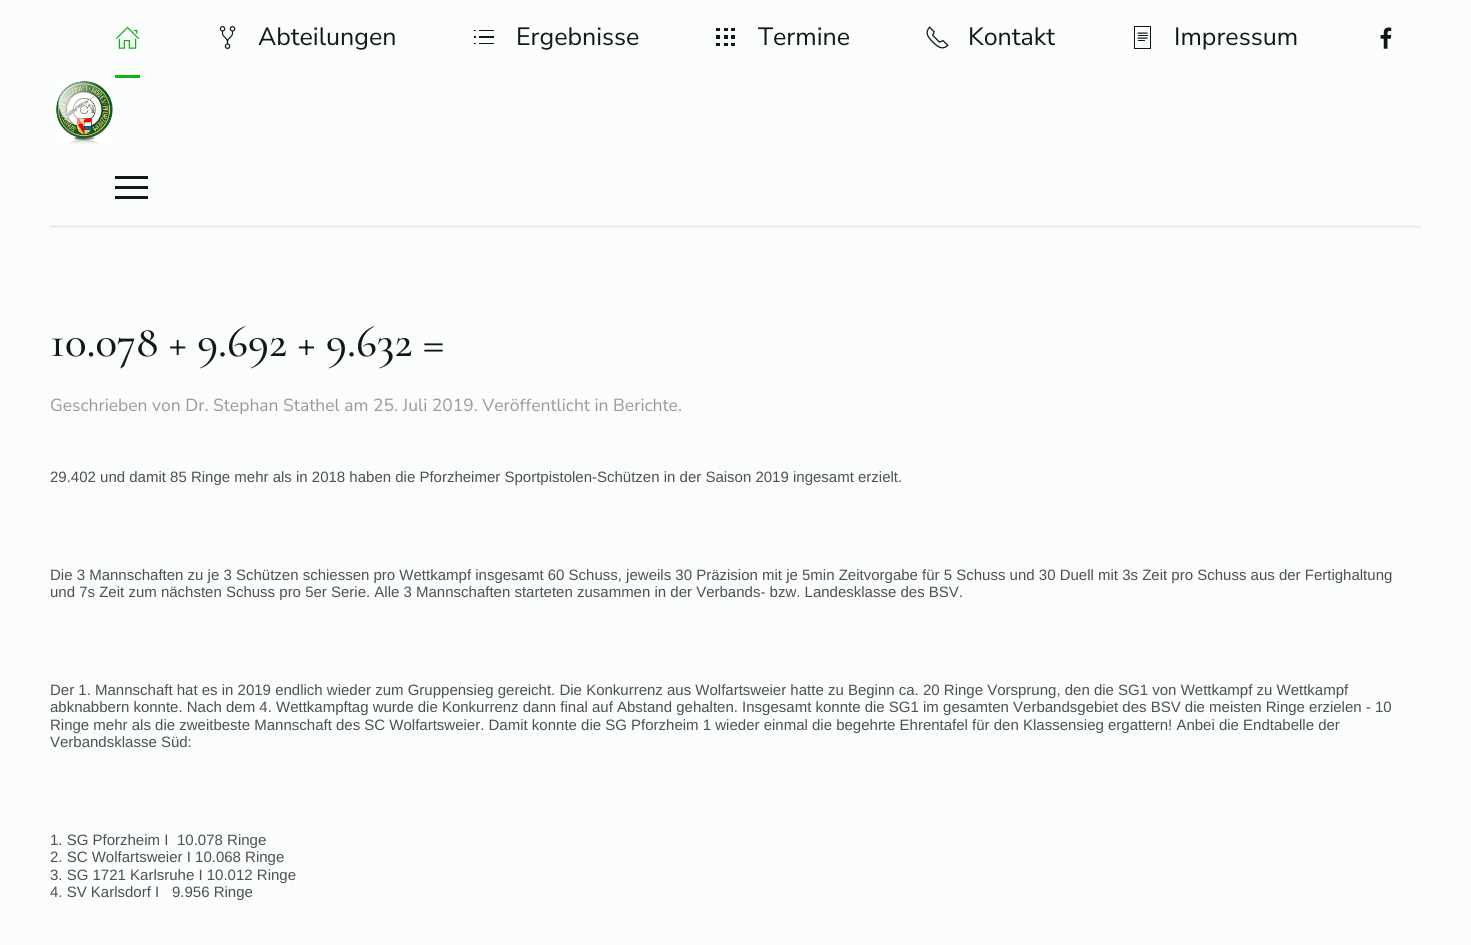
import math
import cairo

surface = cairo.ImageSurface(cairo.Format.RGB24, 1471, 945)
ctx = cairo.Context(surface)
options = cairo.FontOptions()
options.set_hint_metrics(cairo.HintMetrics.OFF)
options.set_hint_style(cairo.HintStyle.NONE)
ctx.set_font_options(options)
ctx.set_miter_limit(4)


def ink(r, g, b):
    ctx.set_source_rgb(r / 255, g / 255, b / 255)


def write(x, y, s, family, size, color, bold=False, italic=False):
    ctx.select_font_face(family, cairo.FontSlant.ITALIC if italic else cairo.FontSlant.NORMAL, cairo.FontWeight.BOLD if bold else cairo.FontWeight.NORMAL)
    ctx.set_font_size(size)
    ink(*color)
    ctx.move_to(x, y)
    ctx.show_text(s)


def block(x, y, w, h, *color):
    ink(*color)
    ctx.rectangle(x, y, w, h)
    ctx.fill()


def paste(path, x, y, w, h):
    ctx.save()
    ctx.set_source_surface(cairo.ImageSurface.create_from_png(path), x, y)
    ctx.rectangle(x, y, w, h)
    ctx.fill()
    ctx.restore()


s1 = dict(family="Nunito Sans ExtraLight", size=25, color=(18, 24, 18))
s2 = dict(family="Cormorant Garamond Light", size=45, color=(18, 24, 18))
s3 = dict(family="Nunito Sans ExtraLight", size=17.5, color=(153, 153, 153))
s4 = dict(family="Liberation Sans", size=15, color=(76, 82, 76))

ink(251, 252, 252)
ctx.paint()
block(50, 225, 1371, 3, 238, 238, 238)
paste("pic1.png", 115, 26, 25, 23)
block(115, 75, 25, 3, 14, 179, 20)
paste("pic2.png", 219, 26, 17, 23)
write(258, 45, "Abteilungen", **s1)
paste("pic3.png", 474, 30, 20, 14)
write(516, 45, "Ergebnisse", **s1)
paste("pic4.png", 716, 28, 19, 18)
write(758, 45, "Termine", **s1)
paste("pic5.png", 926, 26, 23, 23)
write(968, 45, "Kontakt", **s1)
paste("pic6.png", 1134, 26, 17, 23)
write(1174, 45, "Impressum", **s1)
paste("pic7.png", 1380, 27, 12, 22)
block(115, 176, 33, 3, 18, 24, 18)
block(115, 186, 33, 3, 18, 24, 18)
block(115, 196, 33, 3, 18, 24, 18)
paste("pic8.png", 56, 81, 57, 63)
write(50, 356, "10.078 + 9.692 + 9.632 =", **s2)
write(50, 411, "Geschrieben von Dr. Stephan Stathel am 25. Juli 2019. Veröffentlicht in Berichte.", **s3)
write(50, 482, "29.402 und damit 85 Ringe mehr als in 2018 haben die Pforzheimer Sportpistolen-Schützen in der Saison 2019 ingesamt erzielt.", **s4)
write(50, 580, "Die 3 Mannschaften zu je 3 Schützen schiessen pro Wettkampf insgesamt 60 Schuss, jeweils 30 Präzision mit je 5min Zeitvorgabe für 5 Schuss und 30 Duell mit 3s Zeit pro Schuss aus der Fertighaltung", **s4)
write(50, 597, "und 7s Zeit zum nächsten Schuss pro 5er Serie. Alle 3 Mannschaften starteten zusammen in der Verbands- bzw. Landesklasse des BSV.", **s4)
write(50, 695, "Der 1. Mannschaft hat es in 2019 endlich wieder zum Gruppensieg gereicht. Die Konkurrenz aus Wolfartsweier hatte zu Beginn ca. 20 Ringe Vorsprung, den die SG1 von Wettkampf zu Wettkampf", **s4)
write(50, 712, "abknabbern konnte. Nach dem 4. Wettkampftag wurde die Konkurrenz dann final auf Abstand gehalten. Insgesamt konnte die SG1 im gesamten Verbandsgebiet des BSV die meisten Ringe erzielen - 10", **s4)
write(50, 730, "Ringe mehr als die zweitbeste Mannschaft des SC Wolfartsweier. Damit konnte die SG Pforzheim 1 wieder einmal die begehrte Ehrentafel für den Klassensieg ergattern! Anbei die Endtabelle der", **s4)
write(50, 747, "Verbandsklasse Süd:", **s4)
write(50, 845, "1. SG Pforzheim I", **s4)
write(177, 845, "10.078 Ringe", **s4)
write(50, 862, "2. SC Wolfartsweier I 10.068 Ringe", **s4)
write(50, 880, "3. SG 1721 Karlsruhe I 10.012 Ringe", **s4)
write(50, 897, "4. SV Karlsdorf I", **s4)
write(172, 897, "9.956 Ringe", **s4)
surface.write_to_png("screenshot.png")
